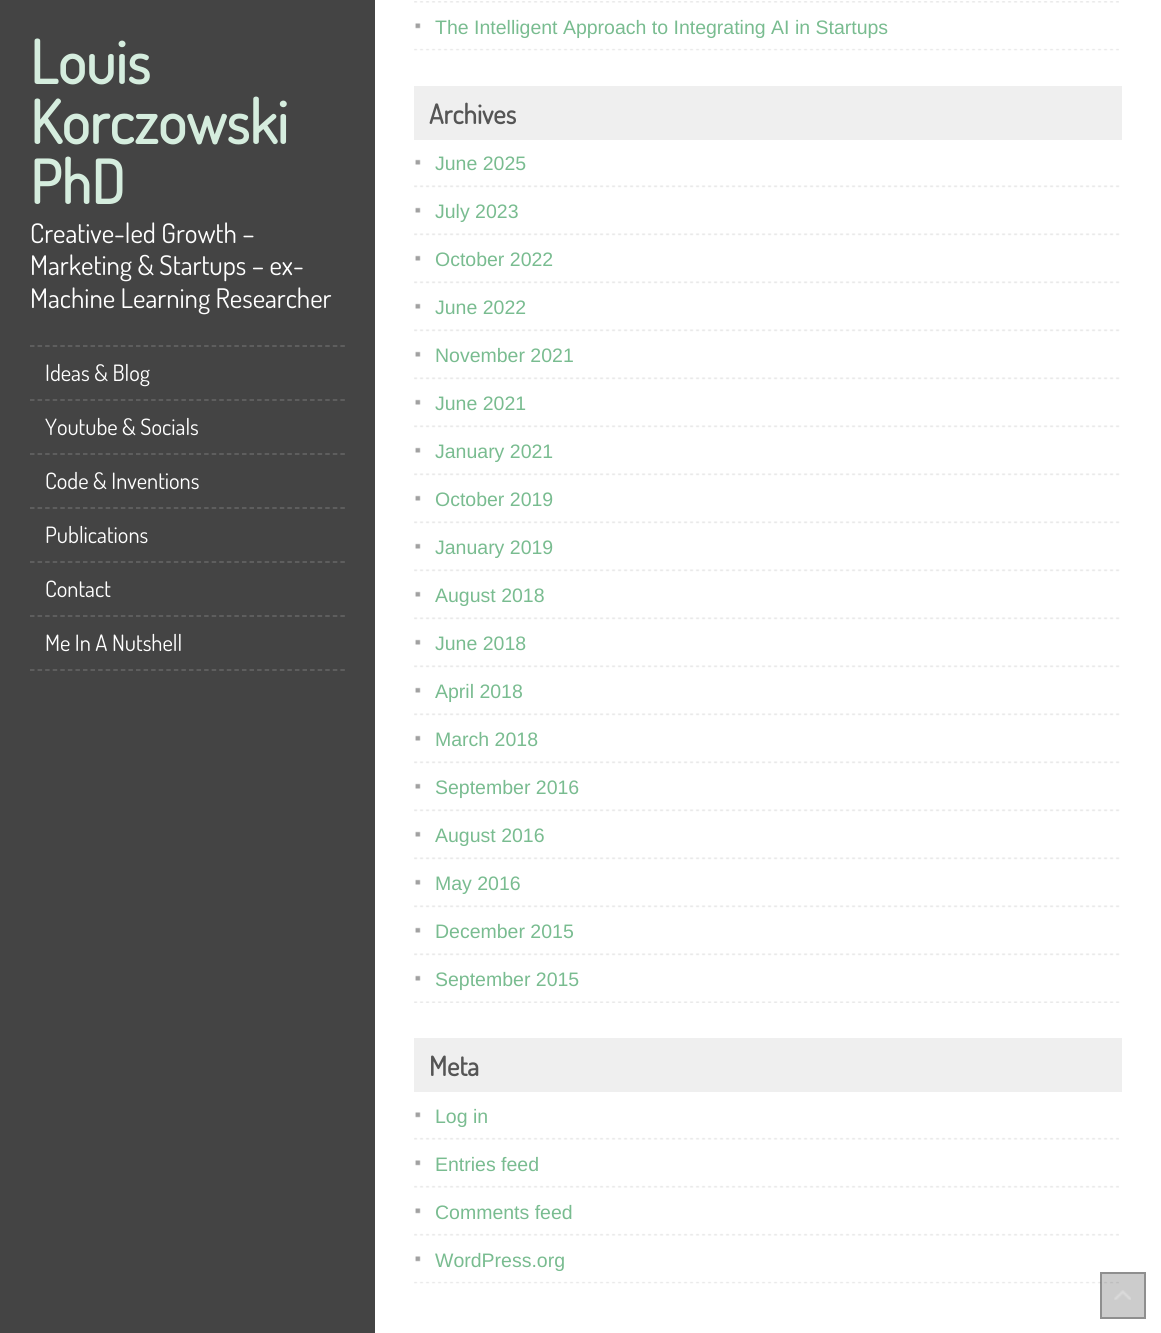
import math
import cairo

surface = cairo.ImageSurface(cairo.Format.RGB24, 1161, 1333)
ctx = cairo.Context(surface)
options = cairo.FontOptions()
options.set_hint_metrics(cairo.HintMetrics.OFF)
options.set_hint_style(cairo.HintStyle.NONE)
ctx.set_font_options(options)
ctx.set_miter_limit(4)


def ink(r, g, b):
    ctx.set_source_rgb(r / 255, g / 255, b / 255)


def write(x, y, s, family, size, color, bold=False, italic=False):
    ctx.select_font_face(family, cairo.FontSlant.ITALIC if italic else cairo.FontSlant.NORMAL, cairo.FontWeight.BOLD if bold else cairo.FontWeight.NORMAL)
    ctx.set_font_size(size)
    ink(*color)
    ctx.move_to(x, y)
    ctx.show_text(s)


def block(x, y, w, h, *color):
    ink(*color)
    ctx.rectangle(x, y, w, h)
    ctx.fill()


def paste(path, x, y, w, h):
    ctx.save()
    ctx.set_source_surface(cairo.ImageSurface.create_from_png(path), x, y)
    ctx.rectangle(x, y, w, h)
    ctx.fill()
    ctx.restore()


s1 = dict(family="Dosis", size=60, color=(213, 237, 222), bold=True)
s2 = dict(family="Dosis", size=27, color=(255, 255, 255))
s3 = dict(family="Dosis", size=22.5, color=(255, 255, 255))
s4 = dict(family="Liberation Sans", size=19.5, color=(121, 188, 144))
s5 = dict(family="Dosis", size=27, color=(85, 85, 85), bold=True)

ink(255, 255, 255)
ctx.paint()
block(0, 0, 375, 1333, 68, 68, 68)
write(30, 84, "Louis", **s1)
write(30, 144, "Korczowski", **s1)
write(30, 204, "PhD", **s1)
write(30, 243, "Creative-led Growth –", **s2)
write(30, 275, "Marketing & Startups – ex-", **s2)
write(30, 308, "Machine Learning Researcher", **s2)
ctx.new_path()
ctx.move_to(30, 346)
ctx.line_to(345, 346)
ink(102, 102, 102)
ctx.set_line_width(1.5)
ctx.set_dash([4.5, 3.07])
ctx.stroke()
ctx.new_path()
ctx.move_to(30, 400)
ctx.line_to(345, 400)
ctx.stroke()
write(45, 381, "Ideas & Blog", **s3)
ctx.new_path()
ctx.move_to(30, 454)
ctx.line_to(345, 454)
ink(102, 102, 102)
ctx.stroke()
write(45, 435, "Youtube & Socials", **s3)
ctx.new_path()
ctx.move_to(30, 508)
ctx.line_to(345, 508)
ink(102, 102, 102)
ctx.stroke()
write(45, 489, "Code & Inventions", **s3)
ctx.new_path()
ctx.move_to(30, 562)
ctx.line_to(345, 562)
ink(102, 102, 102)
ctx.stroke()
write(45, 543, "Publications", **s3)
ctx.new_path()
ctx.move_to(30, 616)
ctx.line_to(345, 616)
ink(102, 102, 102)
ctx.stroke()
write(45, 597, "Contact", **s3)
ctx.new_path()
ctx.move_to(30, 670)
ctx.line_to(345, 670)
ink(102, 102, 102)
ctx.stroke()
write(45, 651, "Me In A Nutshell", **s3)
paste("pic1.png", 414, 1, 705, 50)
paste("pic2.png", 415, 23, 6, 6)
write(435, 34, "The Intelligent Approach to Integrating AI in Startups", **s4)
block(414, 86, 708, 54, 239, 239, 239)
write(429, 124, "Archives", **s5)
paste("pic3.png", 414, 185, 706, 818)
paste("pic4.png", 415, 159, 6, 6)
write(435, 170, "June 2025", **s4)
paste("pic4.png", 415, 207, 6, 6)
write(435, 218, "July 2023", **s4)
paste("pic4.png", 415, 255, 6, 6)
write(435, 266, "October 2022", **s4)
paste("pic4.png", 415, 303, 6, 6)
write(435, 314, "June 2022", **s4)
paste("pic4.png", 415, 351, 6, 6)
write(435, 362, "November 2021", **s4)
paste("pic4.png", 415, 399, 6, 6)
write(435, 410, "June 2021", **s4)
paste("pic4.png", 415, 447, 6, 6)
write(435, 458, "January 2021", **s4)
paste("pic4.png", 415, 495, 6, 6)
write(435, 506, "October 2019", **s4)
paste("pic4.png", 415, 543, 6, 6)
write(435, 554, "January 2019", **s4)
paste("pic4.png", 415, 591, 6, 6)
write(435, 602, "August 2018", **s4)
paste("pic4.png", 415, 639, 6, 6)
write(435, 650, "June 2018", **s4)
paste("pic4.png", 415, 687, 6, 6)
write(435, 698, "April 2018", **s4)
paste("pic4.png", 415, 735, 6, 6)
write(435, 746, "March 2018", **s4)
paste("pic4.png", 415, 783, 6, 6)
write(435, 794, "September 2016", **s4)
paste("pic4.png", 415, 831, 6, 6)
write(435, 842, "August 2016", **s4)
paste("pic4.png", 415, 879, 6, 6)
write(435, 890, "May 2016", **s4)
paste("pic4.png", 415, 927, 6, 6)
write(435, 938, "December 2015", **s4)
paste("pic4.png", 415, 975, 6, 6)
write(435, 986, "September 2015", **s4)
block(414, 1038, 708, 54, 239, 239, 239)
write(429, 1076, "Meta", **s5)
paste("pic5.png", 414, 1137, 705, 147)
paste("pic2.png", 415, 1112, 6, 6)
write(435, 1123, "Log in", **s4)
paste("pic2.png", 415, 1160, 6, 6)
write(435, 1171, "Entries feed", **s4)
paste("pic2.png", 415, 1208, 6, 6)
write(435, 1219, "Comments feed", **s4)
paste("pic2.png", 415, 1256, 6, 6)
write(435, 1267, "WordPress.org", **s4)
ctx.set_source_rgba(0.333, 0.333, 0.333, 0.3)
ctx.rectangle(1100, 1272, 46, 47)
ctx.fill()
paste("pic6.png", 1114, 1290, 17, 10)
ctx.rectangle(1101, 1273, 44, 45)
ctx.set_source_rgba(0, 0, 0, 0.3)
ctx.set_line_width(2)
ctx.set_dash([])
ctx.stroke()
surface.write_to_png("screenshot.png")
